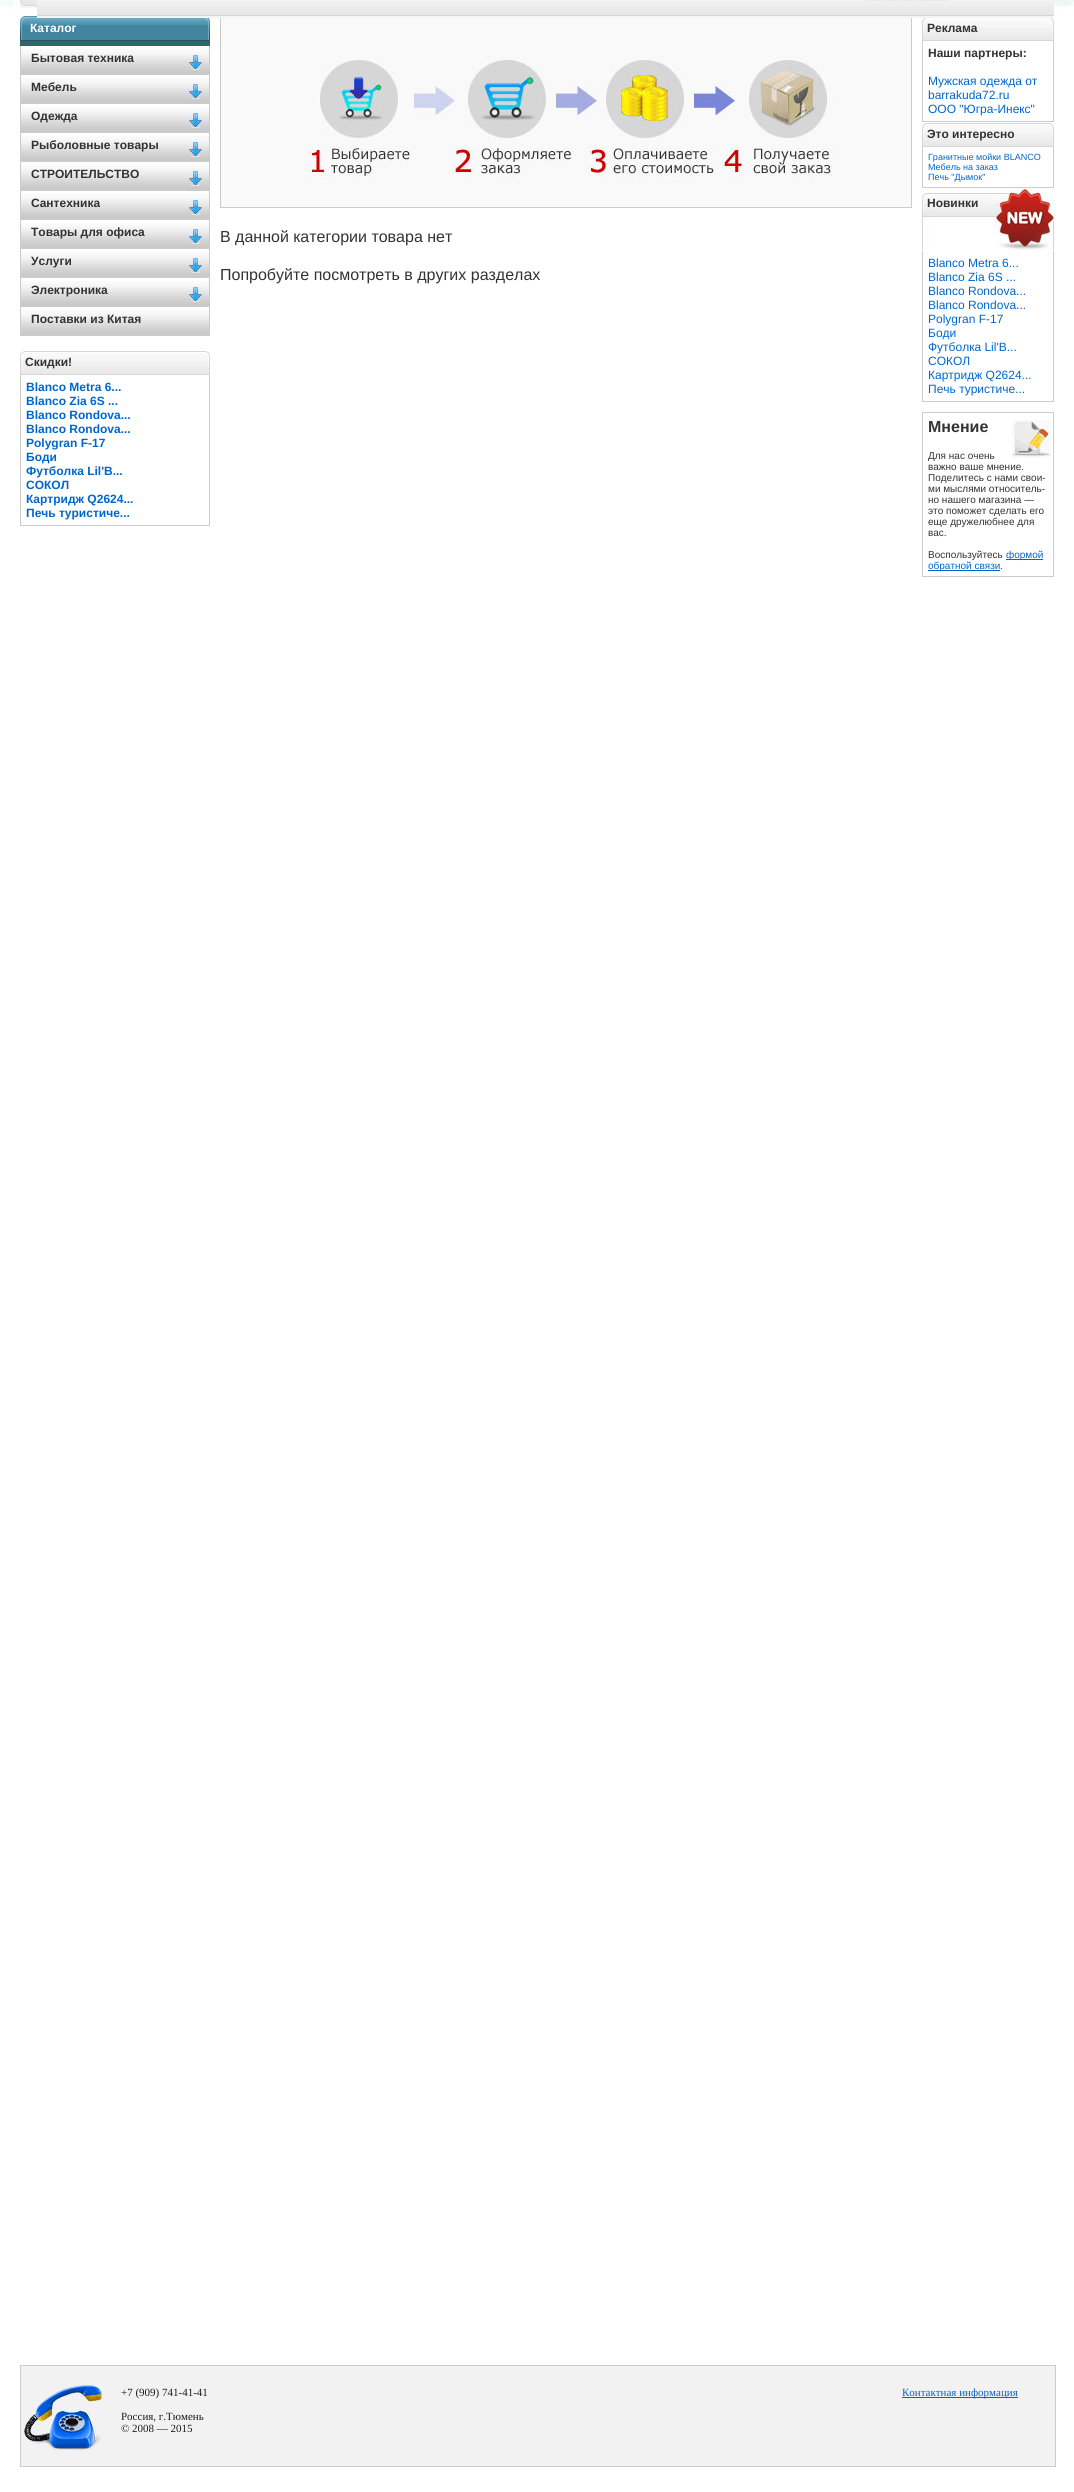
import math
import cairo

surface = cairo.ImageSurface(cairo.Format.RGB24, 1074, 2492)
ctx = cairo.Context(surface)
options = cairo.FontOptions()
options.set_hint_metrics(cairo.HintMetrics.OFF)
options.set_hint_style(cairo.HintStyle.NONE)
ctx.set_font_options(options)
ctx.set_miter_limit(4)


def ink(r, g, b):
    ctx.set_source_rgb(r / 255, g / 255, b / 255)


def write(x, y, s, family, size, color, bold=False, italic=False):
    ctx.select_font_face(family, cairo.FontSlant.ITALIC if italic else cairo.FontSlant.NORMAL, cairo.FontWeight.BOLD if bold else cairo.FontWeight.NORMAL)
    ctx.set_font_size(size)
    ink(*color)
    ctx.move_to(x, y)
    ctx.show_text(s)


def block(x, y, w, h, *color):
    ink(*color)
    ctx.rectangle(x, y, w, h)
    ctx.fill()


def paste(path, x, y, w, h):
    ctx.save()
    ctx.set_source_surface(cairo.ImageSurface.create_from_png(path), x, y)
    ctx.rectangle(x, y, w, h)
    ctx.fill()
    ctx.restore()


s1 = dict(family="Liberation Sans", size=12, color=(255, 255, 255), bold=True)
s2 = dict(family="Liberation Sans", size=12, color=(51, 51, 51), bold=True)
s3 = dict(family="Liberation Sans", size=12, color=(0, 102, 204), bold=True)
s4 = dict(family="Liberation Sans", size=16, color=(51, 51, 51))
s5 = dict(family="Liberation Sans", size=12, color=(0, 102, 204))
s6 = dict(family="Liberation Sans", size=9, color=(0, 102, 204))
s7 = dict(family="Liberation Sans", size=16, color=(51, 51, 51), bold=True)
s8 = dict(family="Liberation Sans", size=10, color=(51, 51, 51))
s9 = dict(family="Liberation Sans", size=10, color=(0, 102, 204))
s10 = dict(family="Liberation Serif", size=11, color=(28, 28, 28))
s11 = dict(family="Liberation Serif", size=11, color=(0, 102, 204))

ink(255, 255, 255)
ctx.paint()
paste("pic1.png", 0, 0, 1074, 16)
paste("pic2.png", 20, 0, 17, 8)
paste("pic7.png", 20, 16, 190, 25)
block(221, 18, 690, 189, 249, 249, 249)
paste("pic11.png", 306, 59, 528, 120)
ctx.rectangle(220.5, 16.5, 691, 191)
ink(204, 204, 204)
ctx.set_line_width(1)
ctx.stroke()
paste("pic3.png", 37, 0, 582, 18)
paste("pic4.png", 619, 0, 85, 18)
paste("pic5.png", 704, 0, 350, 18)
paste("pic6.png", 866, 0, 82, 1)
block(20, 41, 190, 5, 51, 102, 102)
write(30, 32, "Каталог", **s1)
paste("pic8.png", 21, 49, 188, 25)
block(209, 46, 1, 290, 204, 204, 204)
block(20, 74, 190, 1, 204, 204, 204)
block(20, 46, 1, 29, 204, 204, 204)
write(31, 62, "Бытовая техника", **s2)
paste("pic9.png", 189, 55, 13, 15)
paste("pic8.png", 21, 78, 188, 25)
block(20, 103, 190, 1, 204, 204, 204)
block(20, 75, 1, 29, 204, 204, 204)
write(31, 91, "Мебель", **s2)
paste("pic9.png", 189, 84, 13, 15)
paste("pic8.png", 21, 107, 188, 25)
block(20, 132, 190, 1, 204, 204, 204)
block(20, 104, 1, 29, 204, 204, 204)
write(31, 120, "Одежда", **s2)
paste("pic9.png", 189, 113, 13, 15)
paste("pic8.png", 21, 136, 188, 25)
block(20, 161, 190, 1, 204, 204, 204)
block(20, 133, 1, 29, 204, 204, 204)
write(31, 149, "Рыболовные товары", **s2)
paste("pic9.png", 189, 142, 13, 15)
paste("pic8.png", 21, 165, 188, 25)
block(20, 190, 190, 1, 204, 204, 204)
block(20, 162, 1, 29, 204, 204, 204)
write(31, 178, "СТРОИТЕЛЬСТВО", **s2)
paste("pic9.png", 189, 171, 13, 15)
paste("pic8.png", 21, 194, 188, 25)
block(20, 219, 190, 1, 204, 204, 204)
block(20, 191, 1, 29, 204, 204, 204)
write(31, 207, "Сантехника", **s2)
paste("pic9.png", 189, 200, 13, 15)
paste("pic8.png", 21, 223, 188, 25)
block(20, 248, 190, 1, 204, 204, 204)
block(20, 220, 1, 29, 204, 204, 204)
write(31, 236, "Товары для офиса", **s2)
paste("pic9.png", 189, 229, 13, 15)
paste("pic8.png", 21, 252, 188, 25)
block(20, 277, 190, 1, 204, 204, 204)
block(20, 249, 1, 29, 204, 204, 204)
write(31, 265, "Услуги", **s2)
paste("pic9.png", 189, 258, 13, 15)
paste("pic8.png", 21, 281, 188, 25)
block(20, 306, 190, 1, 204, 204, 204)
block(20, 278, 1, 29, 204, 204, 204)
write(31, 294, "Электроника", **s2)
paste("pic9.png", 189, 287, 13, 15)
paste("pic8.png", 21, 310, 188, 25)
block(20, 335, 190, 1, 204, 204, 204)
block(20, 307, 1, 29, 204, 204, 204)
write(31, 323, "Поставки из Китая", **s2)
paste("pic10.png", 20, 351, 190, 24)
write(25, 366, "Скидки!", **s2)
block(209, 375, 1, 151, 204, 204, 204)
block(20, 525, 190, 1, 204, 204, 204)
block(20, 375, 1, 151, 204, 204, 204)
write(26, 391, "Blanco Metra 6...", **s3)
write(26, 405, "Blanco Zia 6S ...", **s3)
write(26, 419, "Blanco Rondova...", **s3)
write(26, 433, "Blanco Rondova...", **s3)
write(26, 447, "Polygran F-17", **s3)
write(26, 461, "Боди", **s3)
write(26, 475, "Футболка Lil'B...", **s3)
write(26, 489, "СОКОЛ", **s3)
write(26, 503, "Картридж Q2624...", **s3)
write(26, 517, "Печь туристиче...", **s3)
write(220, 242, "В данной категории товара нет", **s4)
write(220, 280, "Попробуйте посмотреть в других разделах", **s4)
paste("pic12.png", 922, 18, 132, 23)
write(927, 32, "Реклама", **s2)
block(1053, 41, 1, 81, 204, 204, 204)
block(922, 121, 132, 1, 204, 204, 204)
block(922, 41, 1, 81, 204, 204, 204)
write(928, 57, "Наши партнеры:", **s2)
write(928, 85, "Мужская одежда от", **s5)
write(928, 99, "barrakuda72.ru", **s5)
write(928, 113, "ООО \"Югра-Инекс\"", **s5)
paste("pic13.png", 922, 123, 132, 24)
write(927, 138, "Это интересно", **s2)
block(1053, 147, 1, 41, 204, 204, 204)
block(922, 187, 132, 1, 204, 204, 204)
block(922, 147, 1, 41, 204, 204, 204)
write(928, 160, "Гранитные мойки BLANCO", **s6)
write(928, 170, "Мебель на заказ", **s6)
write(928, 180, "Печь \"Дымок\"", **s6)
paste("pic14.png", 922, 188, 132, 62)
write(927, 207, "Новинки", **s2)
block(1053, 251, 1, 151, 204, 204, 204)
block(922, 401, 132, 1, 204, 204, 204)
block(922, 251, 1, 151, 204, 204, 204)
write(928, 267, "Blanco Metra 6...", **s5)
write(928, 281, "Blanco Zia 6S ...", **s5)
write(928, 295, "Blanco Rondova...", **s5)
write(928, 309, "Blanco Rondova...", **s5)
write(928, 323, "Polygran F-17", **s5)
write(928, 337, "Боди", **s5)
write(928, 351, "Футболка Lil'B...", **s5)
write(928, 365, "СОКОЛ", **s5)
write(928, 379, "Картридж Q2624...", **s5)
write(928, 393, "Печь туристиче...", **s5)
paste("pic15.png", 1012, 420, 39, 38)
ctx.rectangle(922.5, 412.5, 131, 164)
ink(204, 204, 204)
ctx.stroke()
write(928, 432, "Мнение", **s7)
write(928, 459, "Для нас очень", **s8)
write(928, 470, "важно ваше мнение.", **s8)
write(928, 481, "Поделитесь с нами свои-", **s8)
write(928, 492, "ми мыслями относитель-", **s8)
write(928, 503, "но нашего магазина —", **s8)
write(928, 514, "это поможет сделать его", **s8)
write(928, 525, "еще дружелюбнее для", **s8)
write(928, 536, "вас.", **s8)
write(928, 558, "Воспользуйтесь", **s8)
block(1006, 559, 37, 1, 0, 102, 204)
write(1006, 558, "формой", **s9)
block(928, 570, 72, 1, 0, 102, 204)
write(928, 569, "обратной связи", **s9)
write(1000, 569, ".", **s8)
block(21, 2366, 1034, 100, 242, 242, 242)
paste("pic16.png", 24, 2385, 78, 66)
ctx.rectangle(20.5, 2365.5, 1035, 101)
ink(204, 204, 204)
ctx.stroke()
write(121, 2396, "+7 (909) 741-41-41", **s10)
write(121, 2420, "Россия, г.Тюмень", **s10)
write(121, 2432, "© 2008 — 2015", **s10)
block(902, 2397, 116, 1, 0, 102, 204)
write(902, 2396, "Контактная информация", **s11)
surface.write_to_png("screenshot.png")
